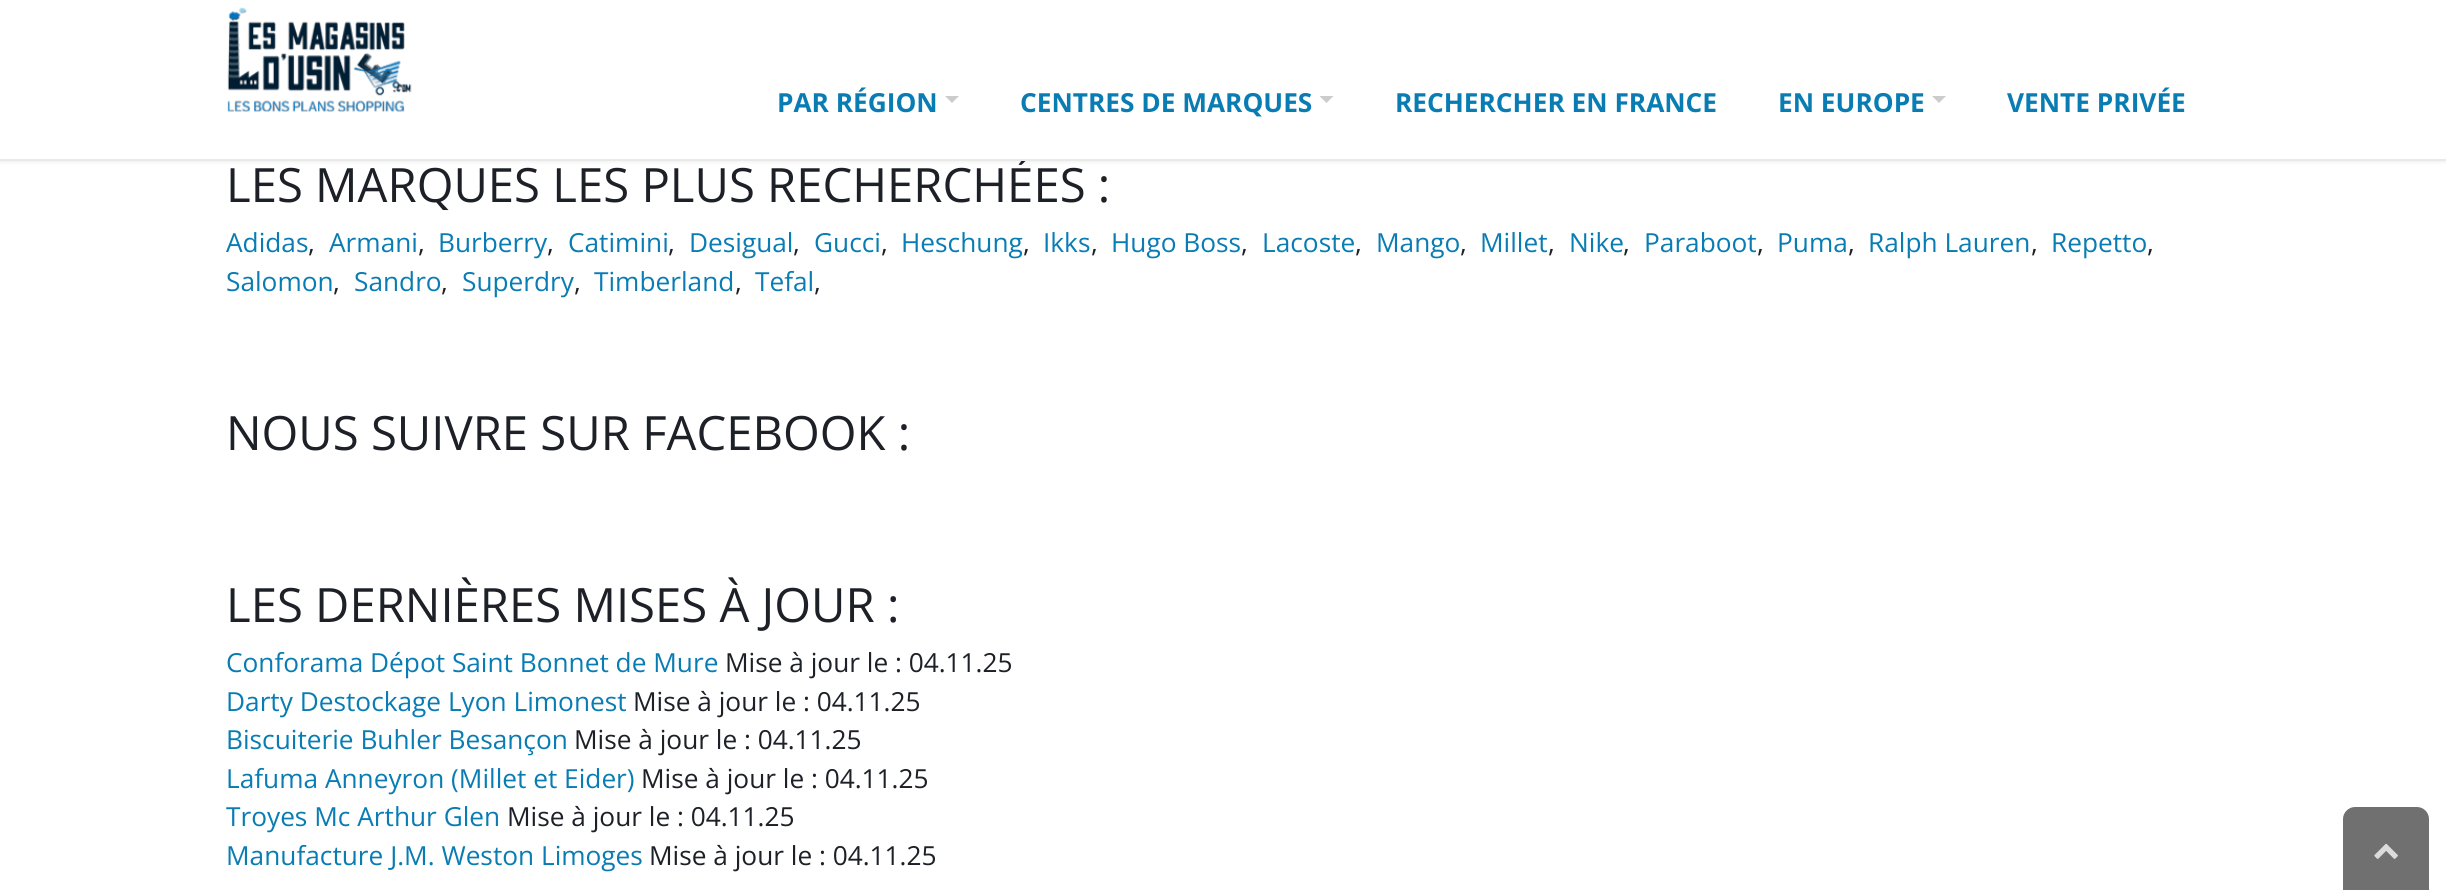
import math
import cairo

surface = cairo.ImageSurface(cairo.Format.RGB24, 2446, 890)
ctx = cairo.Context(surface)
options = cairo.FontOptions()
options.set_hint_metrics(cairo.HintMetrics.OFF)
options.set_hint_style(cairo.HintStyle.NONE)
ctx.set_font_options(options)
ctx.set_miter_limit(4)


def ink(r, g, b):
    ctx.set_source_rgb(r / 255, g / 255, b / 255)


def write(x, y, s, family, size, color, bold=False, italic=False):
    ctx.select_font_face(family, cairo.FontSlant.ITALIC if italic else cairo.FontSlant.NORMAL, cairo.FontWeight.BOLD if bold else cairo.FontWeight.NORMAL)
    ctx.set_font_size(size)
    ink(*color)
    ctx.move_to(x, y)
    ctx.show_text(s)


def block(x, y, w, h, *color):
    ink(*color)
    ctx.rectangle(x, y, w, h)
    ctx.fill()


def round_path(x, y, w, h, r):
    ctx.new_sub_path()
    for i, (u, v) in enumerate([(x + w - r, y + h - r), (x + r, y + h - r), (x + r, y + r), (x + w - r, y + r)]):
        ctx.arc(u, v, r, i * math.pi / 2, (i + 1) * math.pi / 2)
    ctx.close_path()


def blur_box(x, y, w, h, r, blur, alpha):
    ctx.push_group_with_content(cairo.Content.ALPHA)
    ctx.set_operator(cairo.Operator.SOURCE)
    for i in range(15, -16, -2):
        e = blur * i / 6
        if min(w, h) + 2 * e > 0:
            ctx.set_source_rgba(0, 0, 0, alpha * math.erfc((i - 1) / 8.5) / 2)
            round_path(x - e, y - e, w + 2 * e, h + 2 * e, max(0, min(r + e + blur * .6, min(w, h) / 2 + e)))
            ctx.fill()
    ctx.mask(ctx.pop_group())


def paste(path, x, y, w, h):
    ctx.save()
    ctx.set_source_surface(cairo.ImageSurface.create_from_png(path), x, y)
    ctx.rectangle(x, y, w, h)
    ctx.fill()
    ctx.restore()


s1 = dict(family="Open Sans", size=47.25, color=(29, 33, 39))
s2 = dict(family="Open Sans", size=26.25, color=(9, 125, 179), bold=True)
s3 = dict(family="Open Sans", size=26.25, color=(9, 125, 179))
s4 = dict(family="Open Sans", size=26.25, color=(29, 33, 39))

ink(255, 255, 255)
ctx.paint()
ink(0, 0, 0)
blur_box(0, -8, 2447, 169, 0, 2.5, 0.1)
write(226, 202, "LES MARQUES LES PLUS RECHERCHÉES :", **s1)
block(0, 0, 2446, 159, 255, 255, 255)
block(0, 159, 2446, 2, 233, 233, 233)
paste("pic1.png", 227, 7, 185, 105)
write(777, 112, "PAR RÉGION", **s2)
ink(204, 204, 204)
ctx.new_path()
ctx.move_to(945, 96)
ctx.line_to(959, 96)
ctx.line_to(952, 103)
ctx.close_path()
ctx.fill()
write(1020, 112, "CENTRES DE MARQUES", **s2)
ink(204, 204, 204)
ctx.new_path()
ctx.move_to(1319.5, 96)
ctx.line_to(1333.5, 96)
ctx.line_to(1326.5, 103)
ctx.close_path()
ctx.fill()
write(1395, 112, "RECHERCHER EN FRANCE", **s2)
write(1778, 112, "EN EUROPE", **s2)
ink(204, 204, 204)
ctx.new_path()
ctx.move_to(1932, 96)
ctx.line_to(1946, 96)
ctx.line_to(1939, 103)
ctx.close_path()
ctx.fill()
write(2007, 112, "VENTE PRIVÉE", **s2)
write(226, 252, "Adidas", **s3)
write(308, 252, ",", **s4)
write(329, 252, "Armani", **s3)
write(418, 252, ",", **s4)
write(438, 252, "Burberry", **s3)
write(547, 252, ",", **s4)
write(568, 252, "Catimini", **s3)
write(668, 252, ",", **s4)
write(689, 252, "Desigual", **s3)
write(793, 252, ",", **s4)
write(814, 252, "Gucci", **s3)
write(881, 252, ",", **s4)
write(901, 252, "Heschung", **s3)
write(1023, 252, ",", **s4)
write(1043, 252, "Ikks", **s3)
write(1091, 252, ",", **s4)
write(1111, 252, "Hugo Boss", **s3)
write(1241, 252, ",", **s4)
write(1262, 252, "Lacoste", **s3)
write(1355, 252, ",", **s4)
write(1376, 252, "Mango", **s3)
write(1460, 252, ",", **s4)
write(1480, 252, "Millet", **s3)
write(1548, 252, ",", **s4)
write(1569, 252, "Nike", **s3)
write(1623, 252, ",", **s4)
write(1644, 252, "Paraboot", **s3)
write(1757, 252, ",", **s4)
write(1777, 252, "Puma", **s3)
write(1848, 252, ",", **s4)
write(1868, 252, "Ralph Lauren", **s3)
write(2031, 252, ",", **s4)
write(2051, 252, "Repetto", **s3)
write(2147, 252, ",", **s4)
write(226, 291, "Salomon", **s3)
write(333, 291, ",", **s4)
write(354, 291, "Sandro", **s3)
write(441, 291, ",", **s4)
write(462, 291, "Superdry", **s3)
write(574, 291, ",", **s4)
write(594, 291, "Timberland", **s3)
write(735, 291, ",", **s4)
write(755, 291, "Tefal", **s3)
write(814, 291, ",", **s4)
write(226, 450, "NOUS SUIVRE SUR FACEBOOK :", **s1)
write(226, 622, "LES DERNIÈRES MISES À JOUR :", **s1)
write(226, 672, "Conforama Dépot Saint Bonnet de Mure", **s3)
write(725, 672, "Mise à jour le : 04.11.25", **s4)
write(226, 711, "Darty Destockage Lyon Limonest", **s3)
write(633, 711, "Mise à jour le : 04.11.25", **s4)
write(226, 749, "Biscuiterie Buhler Besançon", **s3)
write(574, 749, "Mise à jour le : 04.11.25", **s4)
write(226, 788, "Lafuma Anneyron (Millet et Eider)", **s3)
write(641, 788, "Mise à jour le : 04.11.25", **s4)
write(226, 826, "Troyes Mc Arthur Glen", **s3)
write(507, 826, "Mise à jour le : 04.11.25", **s4)
write(226, 865, "Manufacture J.M. Weston Limoges", **s3)
write(649, 865, "Mise à jour le : 04.11.25", **s4)
ink(112, 112, 112)
ctx.new_path()
ctx.move_to(2355, 807)
ctx.line_to(2417, 807)
ctx.curve_to(2423.5, 807, 2429, 812.5, 2429, 819)
ctx.line_to(2429, 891)
ctx.line_to(2343, 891)
ctx.line_to(2343, 819)
ctx.curve_to(2343, 812.5, 2348.5, 807, 2355, 807)
ctx.close_path()
ctx.fill()
paste("pic2.png", 2374, 843, 24, 16)
surface.write_to_png("screenshot.png")
